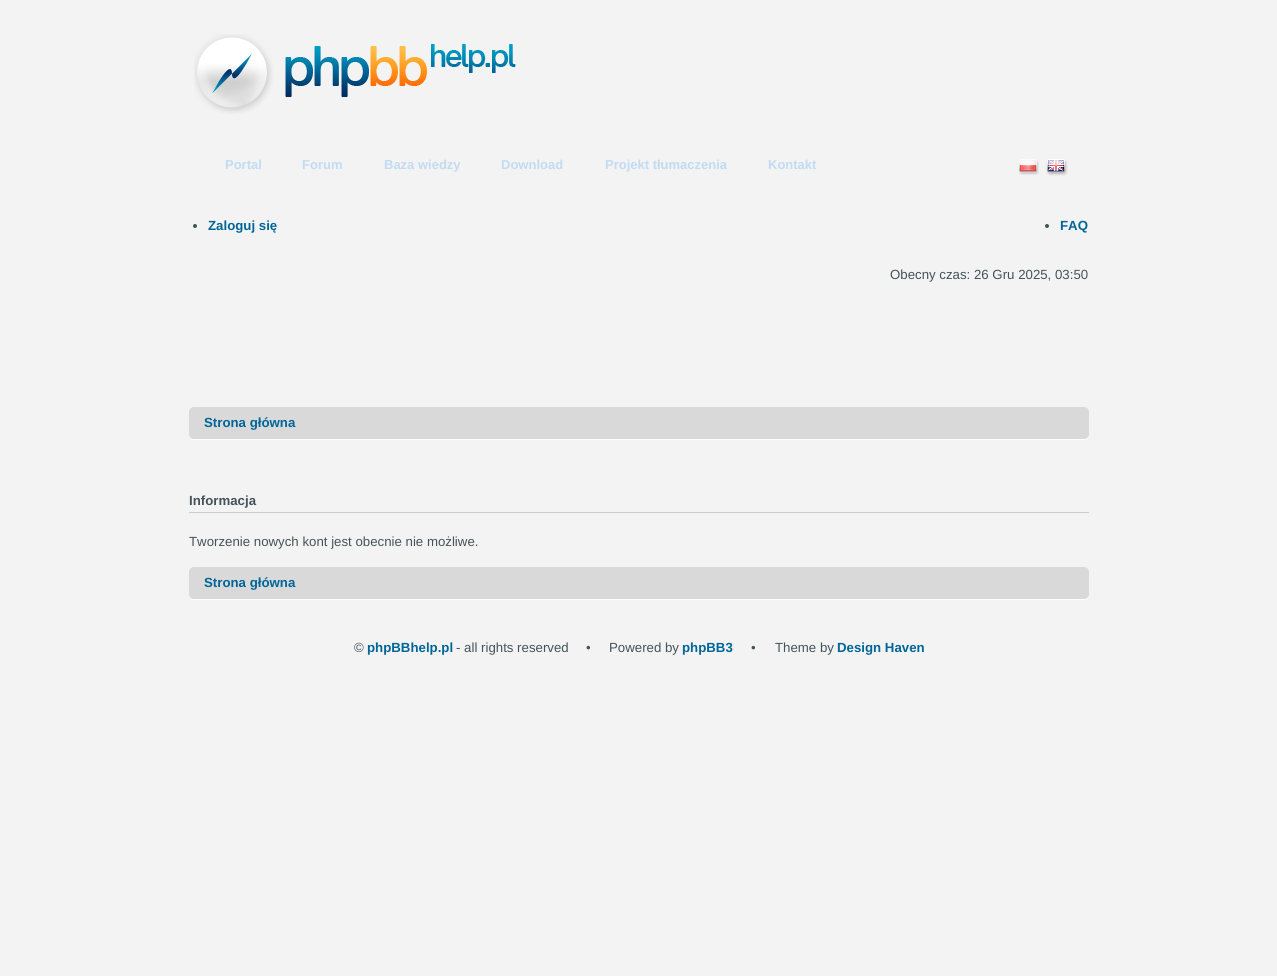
import math
import cairo

surface = cairo.ImageSurface(cairo.Format.RGB24, 1277, 976)
ctx = cairo.Context(surface)
options = cairo.FontOptions()
options.set_hint_metrics(cairo.HintMetrics.OFF)
options.set_hint_style(cairo.HintStyle.NONE)
ctx.set_font_options(options)
ctx.set_miter_limit(4)


def ink(r, g, b):
    ctx.set_source_rgb(r / 255, g / 255, b / 255)


def write(x, y, s, family, size, color, bold=False, italic=False):
    ctx.select_font_face(family, cairo.FontSlant.ITALIC if italic else cairo.FontSlant.NORMAL, cairo.FontWeight.BOLD if bold else cairo.FontWeight.NORMAL)
    ctx.set_font_size(size)
    ink(*color)
    ctx.move_to(x, y)
    ctx.show_text(s)


def block(x, y, w, h, *color):
    ink(*color)
    ctx.rectangle(x, y, w, h)
    ctx.fill()


def round_path(x, y, w, h, r):
    ctx.new_sub_path()
    for i, (u, v) in enumerate([(x + w - r, y + h - r), (x + r, y + h - r), (x + r, y + r), (x + w - r, y + r)]):
        ctx.arc(u, v, r, i * math.pi / 2, (i + 1) * math.pi / 2)
    ctx.close_path()


def paste(path, x, y, w, h):
    ctx.save()
    ctx.set_source_surface(cairo.ImageSurface.create_from_png(path), x, y)
    ctx.rectangle(x, y, w, h)
    ctx.fill()
    ctx.restore()


s1 = dict(family="Liberation Sans", size=13, color=(194, 219, 242), bold=True)
s2 = dict(family="Liberation Sans", size=13.25, color=(0, 101, 151), bold=True)
s3 = dict(family="Liberation Sans", size=13.25, color=(67, 83, 89))
s4 = dict(family="Liberation Sans", size=13.25, color=(67, 83, 89), bold=True)

ink(243, 243, 243)
ctx.paint()
paste("pic1.png", 194, 34, 322, 80)
write(225, 169, "Portal", **s1)
write(302, 169, "Forum", **s1)
write(384, 169, "Baza wiedzy", **s1)
write(501, 169, "Download", **s1)
write(605, 169, "Projekt tłumaczenia", **s1)
write(768, 169, "Kontakt", **s1)
paste("pic2.png", 1019, 159, 20, 16)
paste("pic3.png", 1046, 159, 22, 17)
ink(67, 83, 89)
ctx.arc(195, 226, 2, 0, 2 * math.pi)
ctx.fill()
write(208, 230, "Zaloguj się", **s2)
ink(67, 83, 89)
ctx.new_path()
ctx.arc(1047, 226, 2, 0, 2 * math.pi)
ctx.fill()
write(1060, 230, "FAQ", **s2)
write(890, 279, "Obecny czas: 26 Gru 2025, 03:50", **s3)
ink(255, 255, 255)
ctx.new_path()
ctx.move_to(189, 434)
ctx.curve_to(189, 437, 191, 440, 194, 440)
ctx.line_to(1084, 440)
ctx.curve_to(1087, 440, 1089, 437, 1089, 434)
ctx.curve_to(1089, 437, 1087, 439, 1084, 439)
ctx.line_to(194, 439)
ctx.curve_to(191, 439, 189, 437, 189, 434)
ctx.close_path()
ctx.fill()
ink(217, 217, 217)
round_path(189, 407, 900, 32, 5)
ctx.fill()
write(204, 427, "Strona główna", **s2)
block(189, 512, 900, 1, 204, 204, 204)
write(189, 505, "Informacja", **s4)
write(189, 546, "Tworzenie nowych kont jest obecnie nie możliwe.", **s3)
ink(255, 255, 255)
ctx.new_path()
ctx.move_to(189, 594)
ctx.curve_to(189, 597, 191, 600, 194, 600)
ctx.line_to(1084, 600)
ctx.curve_to(1087, 600, 1089, 597, 1089, 594)
ctx.curve_to(1089, 597, 1087, 599, 1084, 599)
ctx.line_to(194, 599)
ctx.curve_to(191, 599, 189, 597, 189, 594)
ctx.close_path()
ctx.fill()
ink(217, 217, 217)
round_path(189, 567, 900, 32, 5)
ctx.fill()
write(204, 587, "Strona główna", **s2)
write(354, 652, "©", **s3)
write(367, 652, "phpBBhelp.pl", **s2)
write(456, 652, "- all rights reserved", **s3)
write(586, 652, "•", **s3)
write(609, 652, "Powered by", **s3)
write(682, 652, "phpBB3", **s2)
write(751, 652, "•", **s3)
write(775, 652, "Theme by", **s3)
write(837, 652, "Design Haven", **s2)
surface.write_to_png("screenshot.png")
